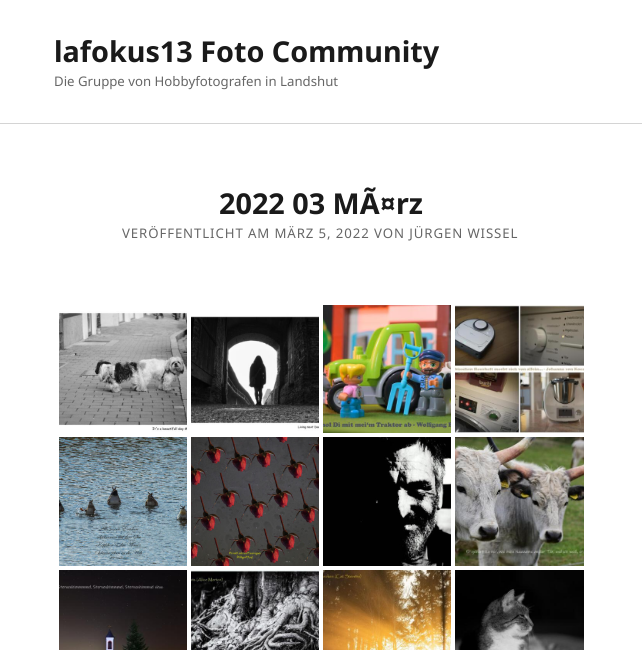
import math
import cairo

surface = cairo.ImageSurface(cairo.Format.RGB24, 642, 650)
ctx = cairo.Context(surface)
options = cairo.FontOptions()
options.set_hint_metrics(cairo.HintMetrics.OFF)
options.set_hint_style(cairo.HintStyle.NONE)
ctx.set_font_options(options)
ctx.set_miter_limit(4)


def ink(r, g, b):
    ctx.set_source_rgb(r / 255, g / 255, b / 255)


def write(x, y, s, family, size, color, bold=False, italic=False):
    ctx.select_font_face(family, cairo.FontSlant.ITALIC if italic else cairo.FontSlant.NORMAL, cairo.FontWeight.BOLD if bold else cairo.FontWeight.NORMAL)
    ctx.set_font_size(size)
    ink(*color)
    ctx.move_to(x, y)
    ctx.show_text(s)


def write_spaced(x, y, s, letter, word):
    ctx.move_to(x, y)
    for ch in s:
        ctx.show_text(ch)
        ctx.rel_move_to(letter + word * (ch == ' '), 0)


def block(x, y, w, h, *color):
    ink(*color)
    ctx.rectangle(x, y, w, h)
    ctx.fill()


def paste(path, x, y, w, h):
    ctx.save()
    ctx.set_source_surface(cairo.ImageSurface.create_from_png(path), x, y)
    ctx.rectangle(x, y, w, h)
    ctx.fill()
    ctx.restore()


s1 = dict(family="Noto Sans", size=28.75, color=(26, 26, 26), bold=True)
s2 = dict(family="Noto Sans", size=13.2, color=(102, 102, 102))

ink(255, 255, 255)
ctx.paint()
block(0, 123, 642, 1, 212, 212, 212)
write(54, 62, "lafokus13 Foto Community", **s1)
write(54, 86, "Die Gruppe von Hobbyfotografen in Landshut", **s2)
write(219, 214, "2022 03 MÃ¤rz", **s1)
ctx.select_font_face("Noto Sans")
ctx.set_font_size(13.2)
ink(102, 102, 102)
write_spaced(122, 238, "VERÖFFENTLICHT AM MÄRZ 5, 2022 VON JÜRGEN WISSEL", 0.9, 0)
paste("pic1.png", 59, 305, 128, 128)
paste("pic2.png", 191, 305, 128, 128)
paste("pic3.png", 323, 305, 128, 128)
paste("pic4.png", 455, 305, 129, 128)
paste("pic5.png", 59, 437, 128, 129)
paste("pic6.png", 191, 437, 128, 129)
paste("pic7.png", 323, 437, 128, 129)
paste("pic8.png", 455, 437, 129, 129)
paste("pic9.png", 59, 570, 128, 80)
paste("pic10.png", 191, 570, 128, 80)
paste("pic11.png", 323, 570, 128, 80)
paste("pic12.png", 455, 570, 129, 80)
surface.write_to_png("screenshot.png")
